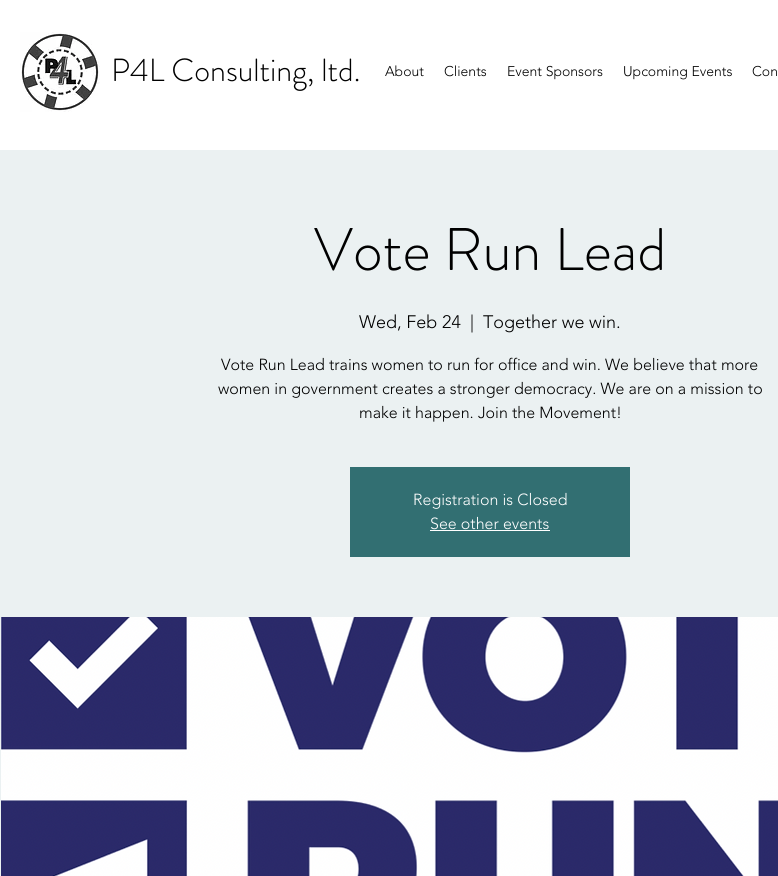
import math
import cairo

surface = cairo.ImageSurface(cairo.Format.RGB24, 778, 876)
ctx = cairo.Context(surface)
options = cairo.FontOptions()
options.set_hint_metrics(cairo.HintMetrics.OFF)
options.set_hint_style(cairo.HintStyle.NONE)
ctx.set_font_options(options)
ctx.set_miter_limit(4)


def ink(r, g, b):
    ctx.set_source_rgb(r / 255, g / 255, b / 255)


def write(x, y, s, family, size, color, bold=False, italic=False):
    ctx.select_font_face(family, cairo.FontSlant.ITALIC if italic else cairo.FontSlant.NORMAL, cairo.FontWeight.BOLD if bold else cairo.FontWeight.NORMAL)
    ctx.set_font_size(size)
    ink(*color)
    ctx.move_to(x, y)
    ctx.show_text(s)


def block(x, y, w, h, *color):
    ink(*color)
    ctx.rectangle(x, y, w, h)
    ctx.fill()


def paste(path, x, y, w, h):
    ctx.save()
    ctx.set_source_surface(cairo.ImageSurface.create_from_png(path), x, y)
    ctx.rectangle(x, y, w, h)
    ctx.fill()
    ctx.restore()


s1 = dict(family="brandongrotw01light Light", size=32, color=(0, 0, 0))
s2 = dict(family="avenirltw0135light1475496 Light", size=14, color=(0, 0, 0))
s3 = dict(family="brandongrotw01light Light", size=60, color=(0, 0, 0))
s4 = dict(family="avenirltw0135light1475496 Light", size=18, color=(0, 0, 0))
s5 = dict(family="avenirltw0135light1475496 Light", size=16, color=(0, 0, 0))
s6 = dict(family="avenirltw0135light1475496 Light", size=16, color=(255, 255, 255))

ink(235, 241, 242)
ctx.paint()
block(0, 0, 778, 150, 255, 255, 255)
paste("pic1.png", 20, 32, 80, 80)
write(111, 81, "P4L Consulting, ltd.", **s1)
write(385, 76, "About", **s2)
write(444, 76, "Clients", **s2)
write(507, 76, "Event Sponsors", **s2)
write(623, 76, "Upcoming Events", **s2)
write(752, 76, "Con", **s2)
write(314, 270, "Vote Run Lead", **s3)
write(359, 328, "Wed, Feb 24", **s4)
write(470, 328, "|", **s4)
write(483, 328, "Together we win.", **s4)
write(221, 370, "Vote Run Lead trains women to run for office and win. We believe that more", **s5)
write(218, 394, "women in government creates a stronger democracy. We are on a mission to", **s5)
write(359, 418, "make it happen. Join the Movement!", **s5)
block(350, 467, 280, 90, 50, 111, 114)
write(413, 505, "Registration is Closed", **s6)
write(430, 529, "See other events", **s6)
block(430, 530, 120, 1, 255, 255, 255)
paste("pic2.png", 1, 617, 777, 259)
surface.write_to_png("screenshot.png")
